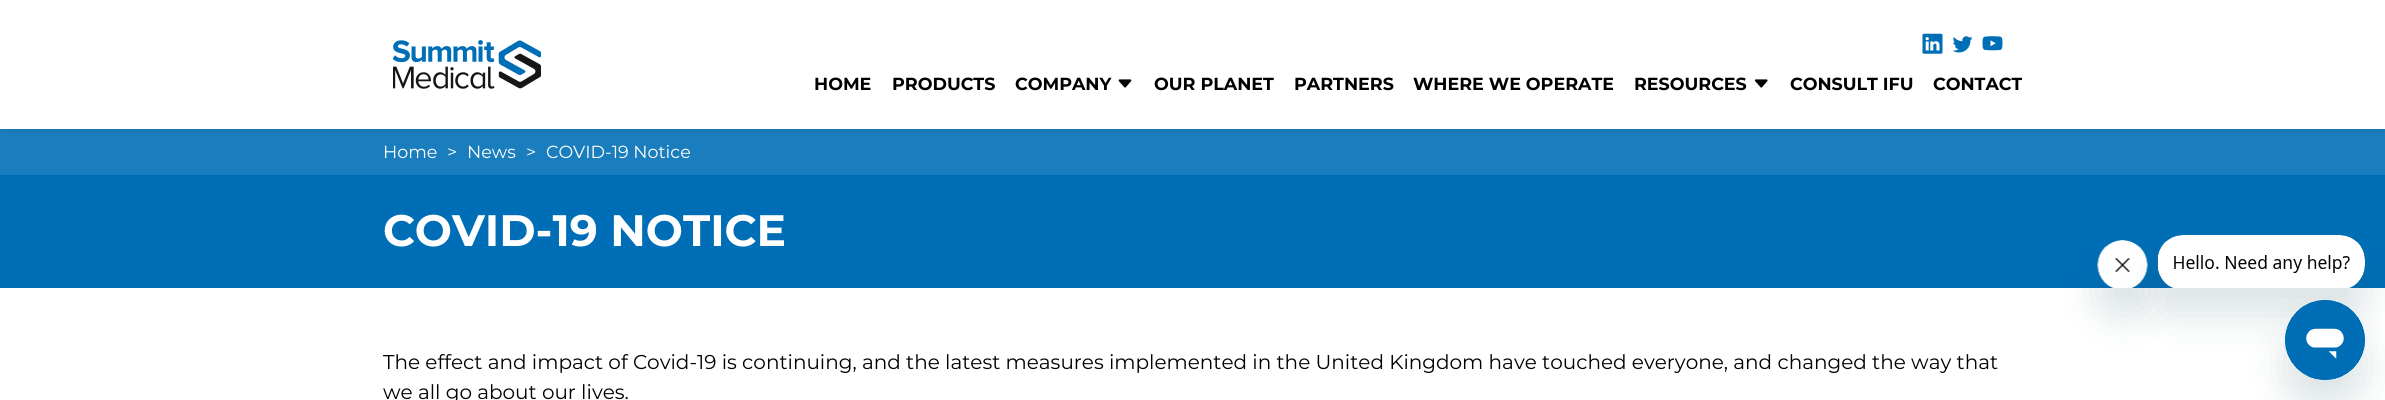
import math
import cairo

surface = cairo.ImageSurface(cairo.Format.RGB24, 2385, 400)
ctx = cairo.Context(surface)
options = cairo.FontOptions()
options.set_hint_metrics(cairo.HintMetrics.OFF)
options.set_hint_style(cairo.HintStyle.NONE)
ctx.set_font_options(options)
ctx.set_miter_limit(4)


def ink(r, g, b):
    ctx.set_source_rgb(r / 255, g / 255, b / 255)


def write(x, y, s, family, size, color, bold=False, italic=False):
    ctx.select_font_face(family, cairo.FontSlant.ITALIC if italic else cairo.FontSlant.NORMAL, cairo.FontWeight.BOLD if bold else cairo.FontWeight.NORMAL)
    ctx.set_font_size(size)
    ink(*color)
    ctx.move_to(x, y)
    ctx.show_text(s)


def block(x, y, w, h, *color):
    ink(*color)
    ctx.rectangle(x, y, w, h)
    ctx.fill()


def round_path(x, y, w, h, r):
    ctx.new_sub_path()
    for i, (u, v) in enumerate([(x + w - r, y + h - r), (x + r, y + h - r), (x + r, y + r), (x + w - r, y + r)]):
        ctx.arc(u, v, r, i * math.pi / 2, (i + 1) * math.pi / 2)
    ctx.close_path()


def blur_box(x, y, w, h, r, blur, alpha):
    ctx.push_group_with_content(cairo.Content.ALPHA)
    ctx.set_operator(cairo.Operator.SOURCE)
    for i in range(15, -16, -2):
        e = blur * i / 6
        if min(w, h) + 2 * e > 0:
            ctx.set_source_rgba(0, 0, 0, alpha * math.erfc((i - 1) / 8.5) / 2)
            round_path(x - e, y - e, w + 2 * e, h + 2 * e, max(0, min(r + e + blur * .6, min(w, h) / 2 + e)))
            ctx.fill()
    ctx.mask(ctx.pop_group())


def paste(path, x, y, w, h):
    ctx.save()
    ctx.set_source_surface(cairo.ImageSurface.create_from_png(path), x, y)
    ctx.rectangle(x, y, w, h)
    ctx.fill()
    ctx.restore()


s1 = dict(family="Montserrat", size=17.5, color=(0, 0, 0), bold=True)
s2 = dict(family="Montserrat", size=17.5, color=(255, 255, 255))
s3 = dict(family="Montserrat", size=44, color=(255, 255, 255), bold=True)
s4 = dict(family="Montserrat", size=20, color=(0, 0, 0))

ink(255, 255, 255)
ctx.paint()
block(0, 129, 2385, 46, 26, 125, 189)
ink(0, 0, 0)
blur_box(0, 3, 2385, 128, 0, 2.5, 0.07)
block(0, 0, 2385, 129, 255, 255, 255)
paste("pic1.png", 393, 40, 148, 49)
paste("pic2.png", 1922, 33, 21, 21)
paste("pic3.png", 1952, 36, 21, 17)
paste("pic4.png", 1982, 36, 21, 15)
write(814, 90, "HOME", **s1)
write(892, 90, "PRODUCTS", **s1)
write(1015, 90, "COMPANY", **s1)
paste("pic5.png", 1118, 79, 14, 9)
write(1154, 90, "OUR PLANET", **s1)
write(1294, 90, "PARTNERS", **s1)
write(1413, 90, "WHERE WE OPERATE", **s1)
write(1634, 90, "RESOURCES", **s1)
paste("pic6.png", 1754, 79, 14, 9)
write(1790, 90, "CONSULT IFU", **s1)
write(1933, 90, "CONTACT", **s1)
block(0, 175, 2385, 113, 0, 110, 182)
write(383, 158, "Home", **s2)
write(447, 158, ">", **s2)
write(467, 158, "News", **s2)
write(526, 158, ">", **s2)
write(546, 158, "COVID-19 Notice", **s2)
write(383, 246, "COVID-19 NOTICE", **s3)
write(383, 369, "The effect and impact of Covid-19 is continuing, and the latest measures implemented in the United Kingdom have touched everyone, and changed the way that", **s4)
write(383, 399, "we all go about our lives.", **s4)
ink(23, 73, 77)
blur_box(2098, 265, 50, 50, 25, 19, 0.15)
paste("pic8.png", 2097, 240, 51, 48)
blur_box(2158, 260, 207, 55, 25, 19, 0.15)
paste("pic7.png", 2157, 235, 208, 53)
blur_box(2285, 325, 80, 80, 40, 19, 0.15)
paste("pic9.png", 2285, 300, 80, 80)
surface.write_to_png("screenshot.png")
